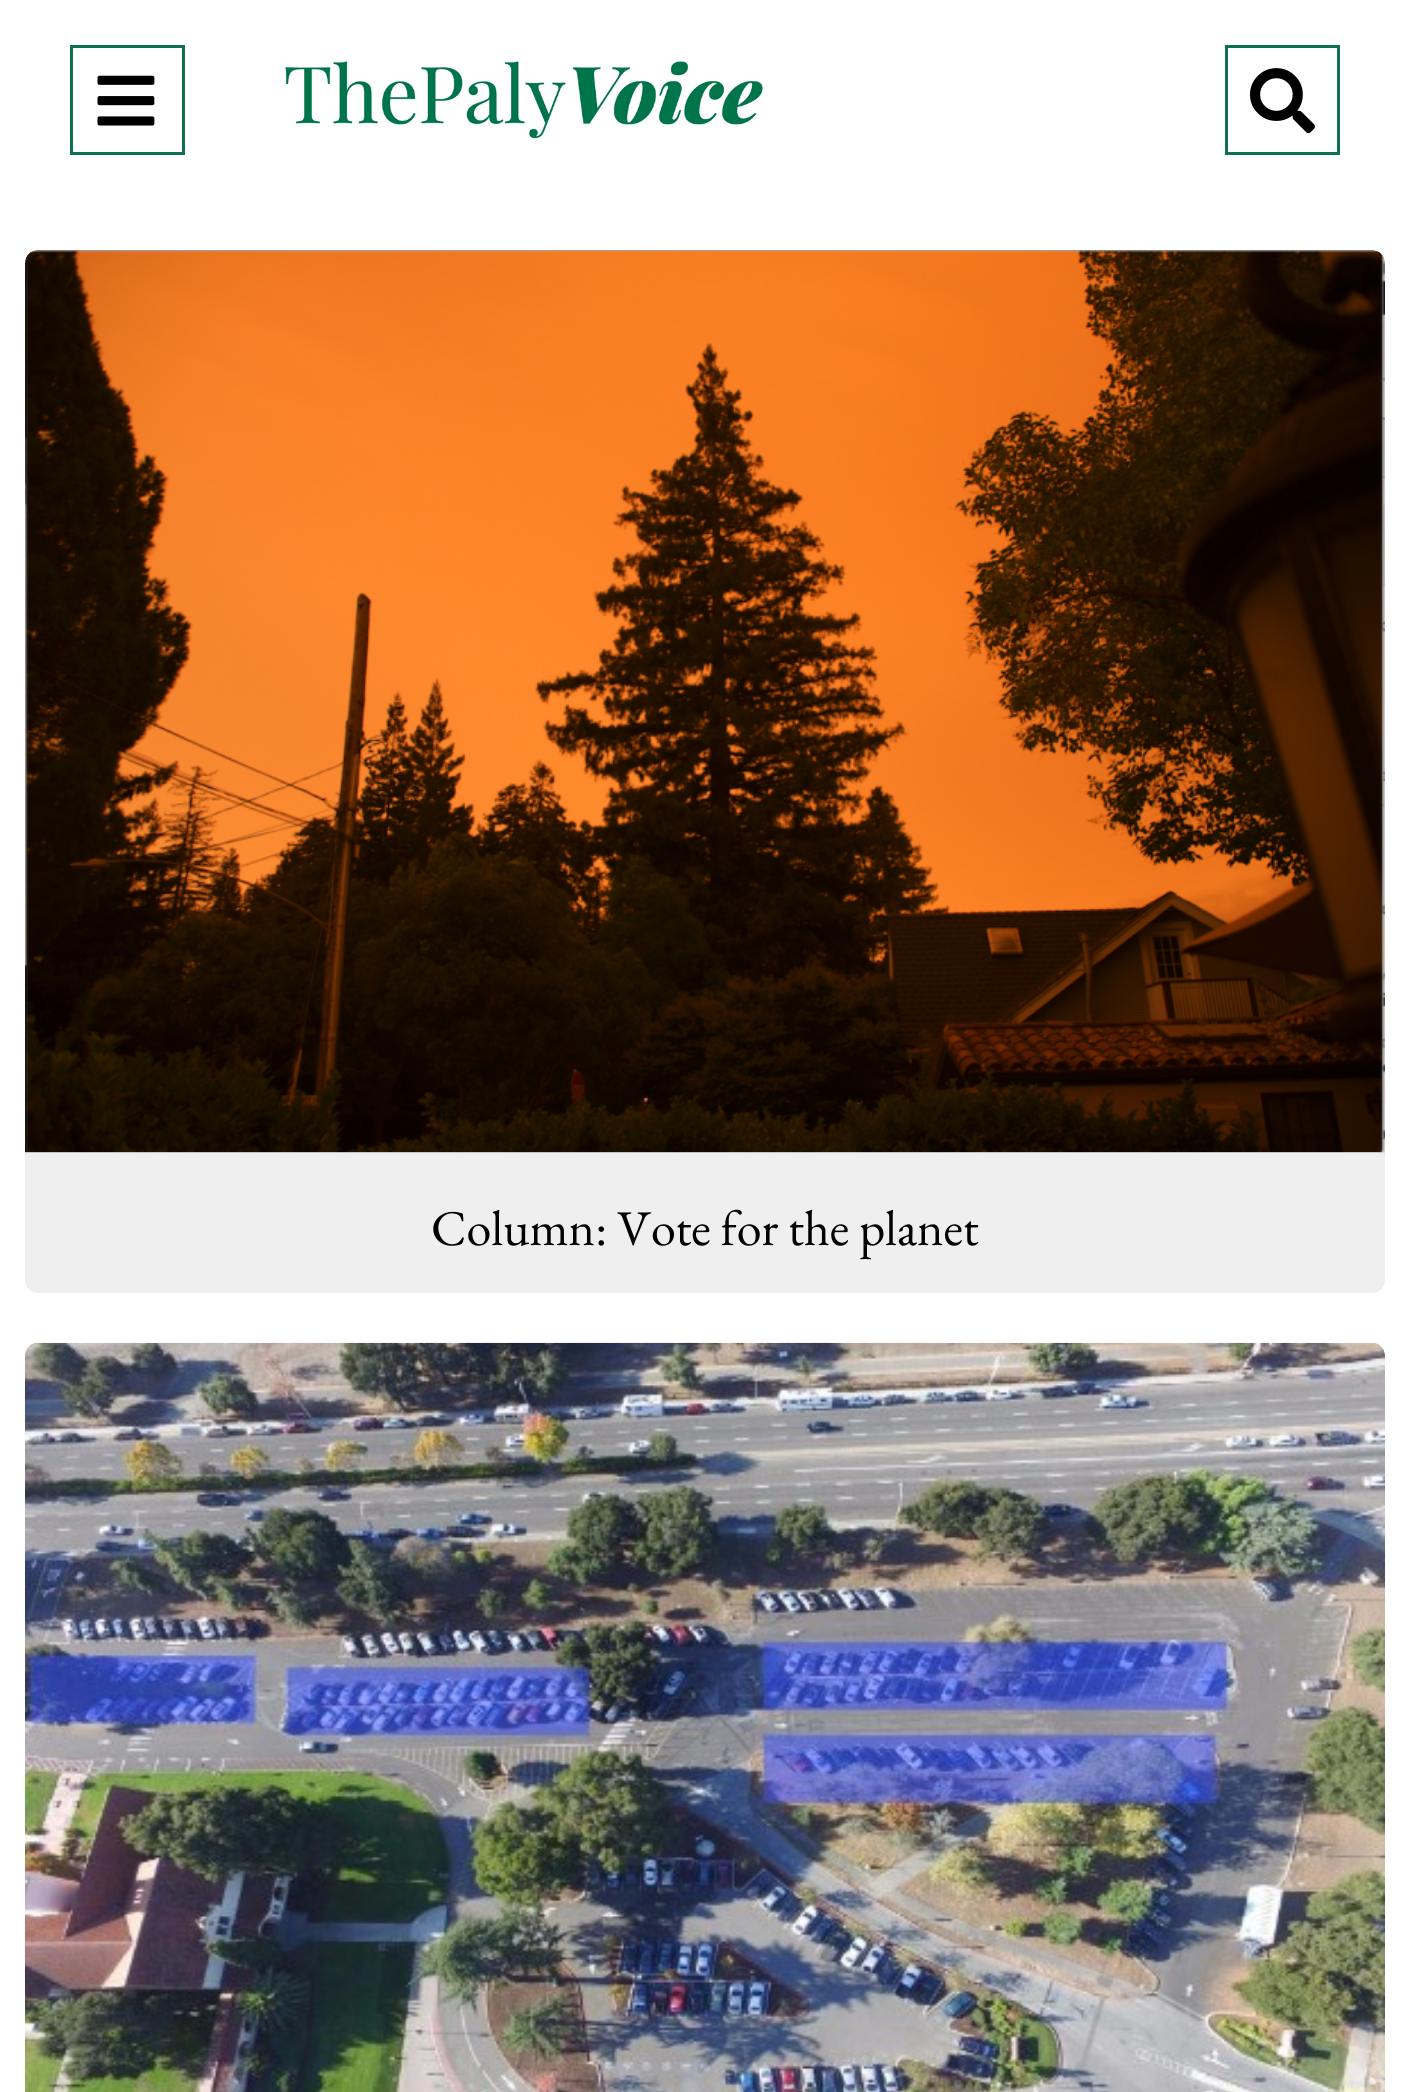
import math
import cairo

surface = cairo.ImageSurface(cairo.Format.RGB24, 1410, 2092)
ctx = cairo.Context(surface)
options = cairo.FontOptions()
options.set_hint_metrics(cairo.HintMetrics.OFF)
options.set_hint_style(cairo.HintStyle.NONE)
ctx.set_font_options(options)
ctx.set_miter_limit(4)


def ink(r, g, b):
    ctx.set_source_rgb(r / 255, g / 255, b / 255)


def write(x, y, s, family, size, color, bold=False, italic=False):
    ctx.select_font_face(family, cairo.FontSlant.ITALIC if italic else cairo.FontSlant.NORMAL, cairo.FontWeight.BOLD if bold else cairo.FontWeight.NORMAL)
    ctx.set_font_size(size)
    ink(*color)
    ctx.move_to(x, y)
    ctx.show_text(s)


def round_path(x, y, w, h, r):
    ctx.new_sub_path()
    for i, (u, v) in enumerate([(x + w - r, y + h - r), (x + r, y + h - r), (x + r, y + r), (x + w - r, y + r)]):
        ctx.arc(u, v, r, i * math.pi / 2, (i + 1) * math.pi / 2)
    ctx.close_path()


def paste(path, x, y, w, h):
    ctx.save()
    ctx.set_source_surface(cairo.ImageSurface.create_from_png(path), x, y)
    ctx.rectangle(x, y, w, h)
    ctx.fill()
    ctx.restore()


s1 = dict(family="EB Garamond", size=50, color=(0, 0, 0))

ink(255, 255, 255)
ctx.paint()
ctx.rectangle(71.5, 46.5, 112, 107)
ink(13, 114, 77)
ctx.set_line_width(3)
ctx.stroke()
paste("pic1.png", 97, 75, 58, 51)
paste("pic2.png", 285, 61, 478, 78)
ctx.rectangle(1226.5, 46.5, 112, 107)
ctx.stroke()
paste("pic3.png", 1250, 68, 65, 66)
ink(239, 239, 239)
round_path(25, 250, 1360, 1043, 13)
ctx.fill()
ink(221, 221, 221)
ctx.new_path()
ctx.move_to(38, 250)
ctx.line_to(1372, 250)
ctx.curve_to(1379, 250, 1385, 256, 1385, 263)
ctx.line_to(1385, 1153)
ctx.line_to(25, 1153)
ctx.line_to(25, 263)
ctx.curve_to(25, 256, 31, 250, 38, 250)
ctx.close_path()
ctx.fill()
paste("pic4.png", 25, 250, 1360, 903)
write(431, 1245, "Column: Vote for the planet", **s1)
paste("pic5.png", 25, 1342, 1360, 750)
surface.write_to_png("screenshot.png")
